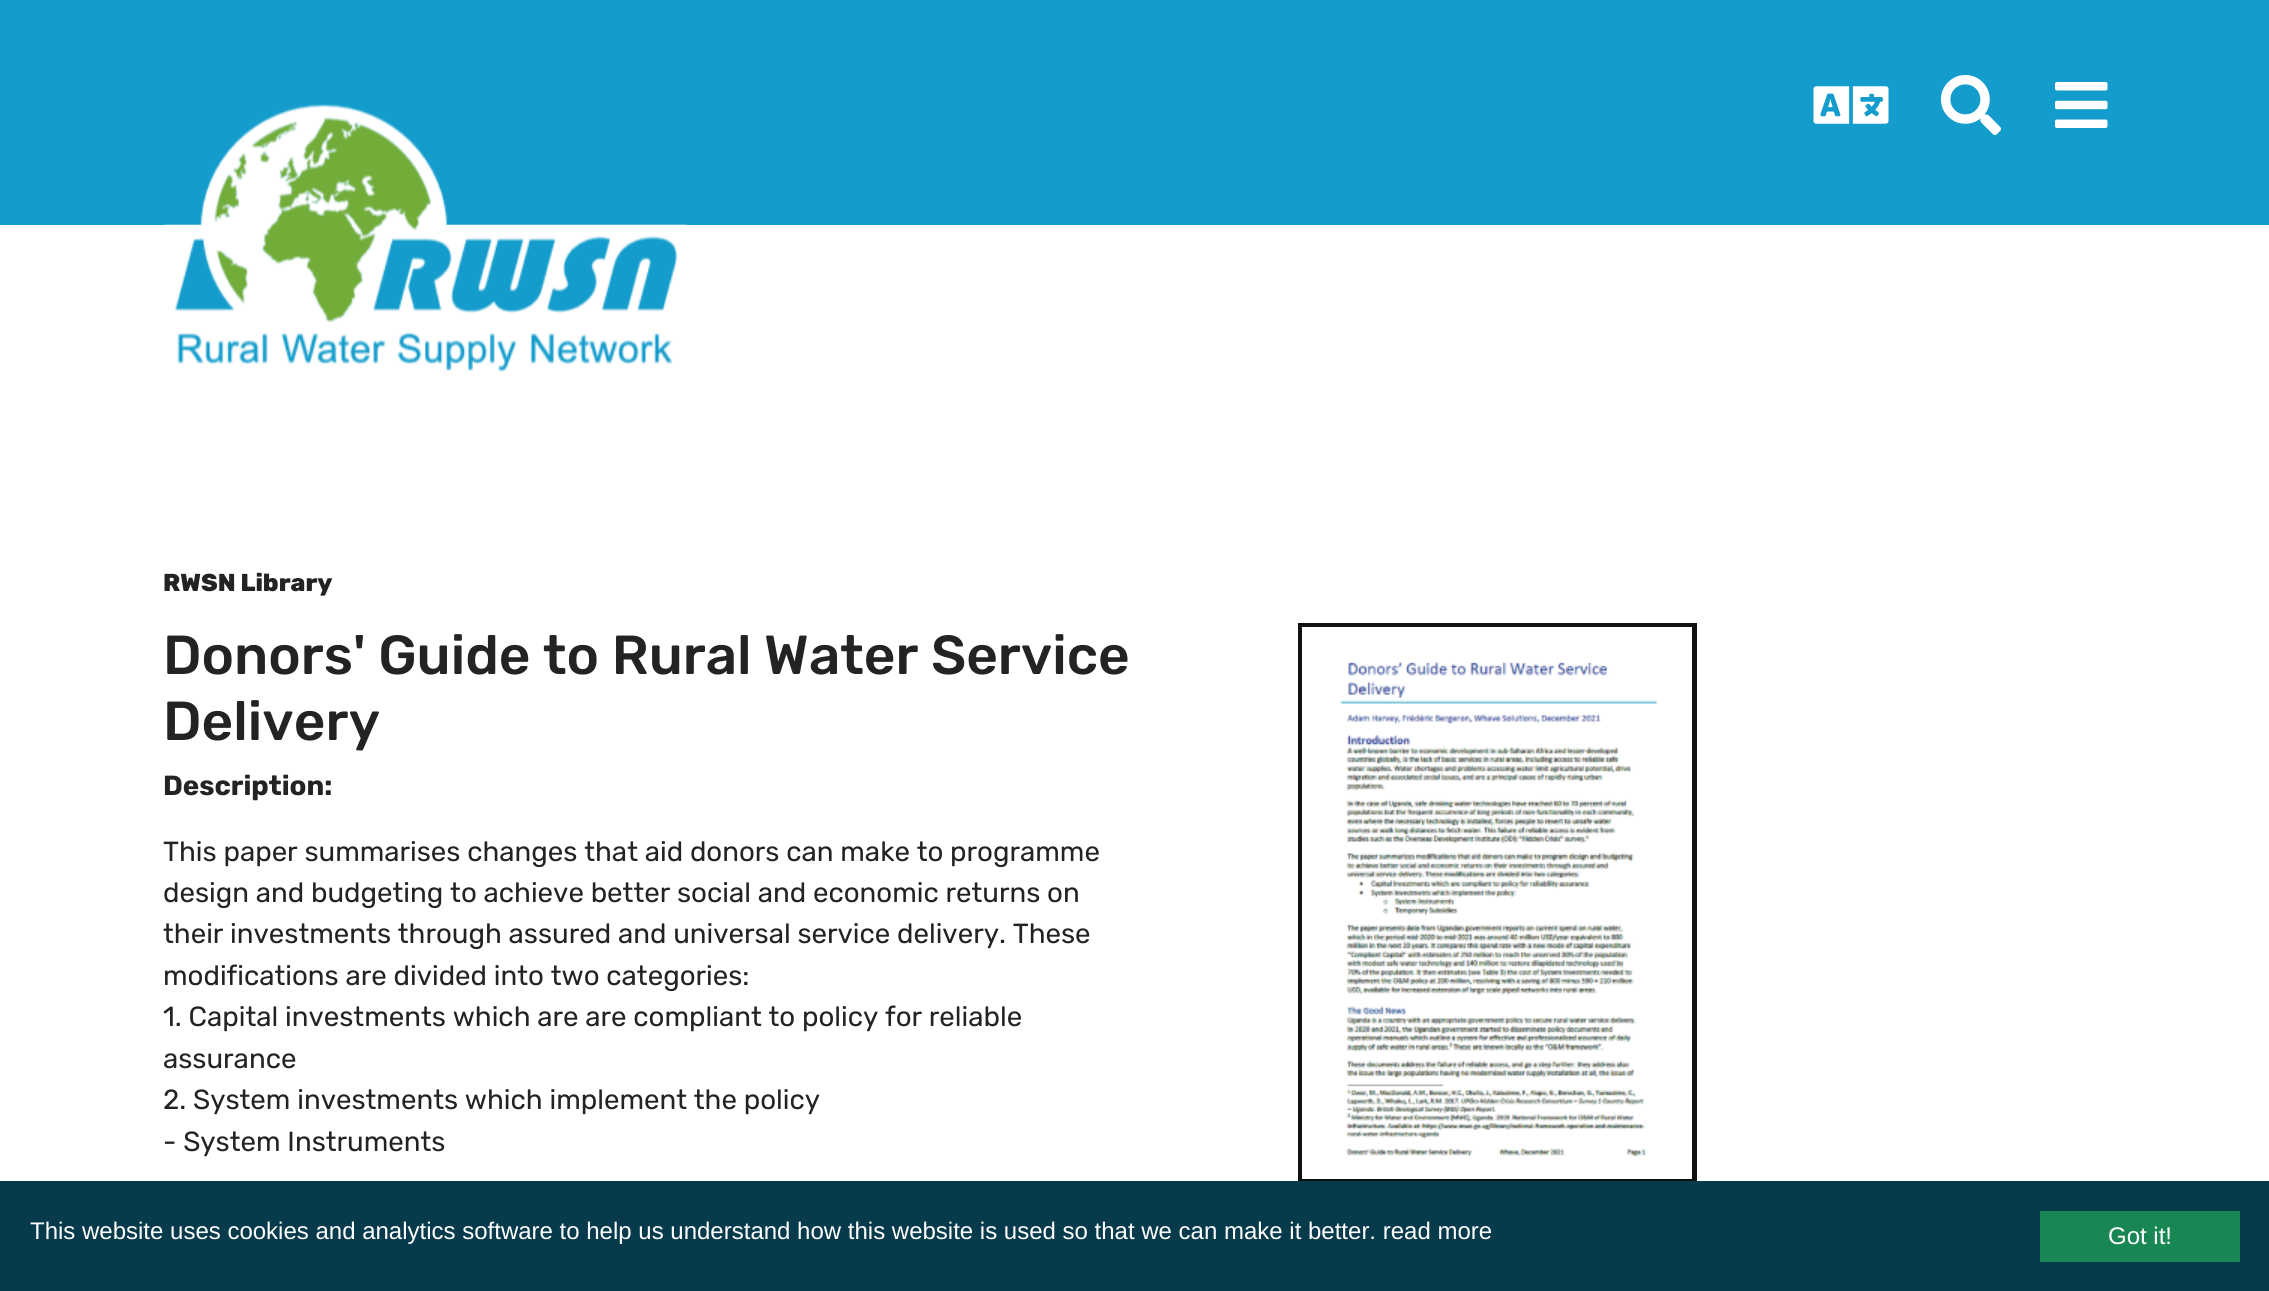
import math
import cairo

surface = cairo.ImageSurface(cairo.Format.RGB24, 2269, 1291)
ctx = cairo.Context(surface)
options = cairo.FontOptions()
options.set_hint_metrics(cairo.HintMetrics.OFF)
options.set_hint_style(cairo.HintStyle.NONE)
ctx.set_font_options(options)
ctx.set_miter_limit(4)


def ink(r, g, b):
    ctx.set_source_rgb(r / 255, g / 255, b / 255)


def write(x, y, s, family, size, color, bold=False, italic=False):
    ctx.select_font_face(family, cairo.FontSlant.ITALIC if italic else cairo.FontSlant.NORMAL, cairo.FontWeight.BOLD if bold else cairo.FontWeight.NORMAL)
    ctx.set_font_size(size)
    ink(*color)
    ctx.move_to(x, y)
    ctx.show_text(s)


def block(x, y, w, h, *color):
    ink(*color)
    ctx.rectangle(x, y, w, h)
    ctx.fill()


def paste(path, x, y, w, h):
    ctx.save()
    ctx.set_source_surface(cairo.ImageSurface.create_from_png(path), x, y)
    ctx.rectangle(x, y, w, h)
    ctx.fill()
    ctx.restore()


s1 = dict(family="Rubik ExtraBold", size=24.5, color=(35, 35, 35))
s2 = dict(family="Rubik Medium", size=54.9, color=(35, 35, 35))
s3 = dict(family="Rubik", size=27.65, color=(35, 35, 35), bold=True)
s4 = dict(family="Rubik", size=27.65, color=(35, 35, 35))
s5 = dict(family="Liberation Sans", size=24, color=(255, 255, 255))

ink(255, 255, 255)
ctx.paint()
block(0, 0, 2269, 225, 20, 157, 204)
paste("pic1.png", 1813, 86, 76, 38)
paste("pic2.png", 1941, 75, 60, 60)
paste("pic3.png", 2055, 82, 53, 46)
paste("pic4.png", 164, 104, 523, 269)
write(163, 591, "RWSN Library", **s1)
write(163, 674, "Donors' Guide to Rural Water Service", **s2)
write(163, 740, "Delivery", **s2)
write(163, 795, "Description:", **s3)
write(163, 861, "This paper summarises changes that aid donors can make to programme", **s4)
write(163, 902, "design and budgeting to achieve better social and economic returns on", **s4)
write(163, 943, "their investments through assured and universal service delivery. These", **s4)
write(163, 985, "modifications are divided into two categories:", **s4)
write(163, 1026, "1. Capital investments which are are compliant to policy for reliable", **s4)
write(163, 1068, "assurance", **s4)
write(163, 1109, "2. System investments which implement the policy", **s4)
write(163, 1151, "- System Instruments", **s4)
ctx.rectangle(1300.5, 625.5, 394, 556)
ink(17, 17, 17)
ctx.set_line_width(5)
ctx.stroke()
paste("pic5.png", 1302, 627, 390, 552)
block(0, 1181, 2269, 110, 7, 59, 76)
write(30, 1239, "This website uses cookies and analytics software to help us understand how this website is used so that we can make it better. read more", **s5)
block(2040, 1211, 200, 51, 25, 135, 84)
write(2108, 1244, "Got it!", **s5)
surface.write_to_png("screenshot.png")
